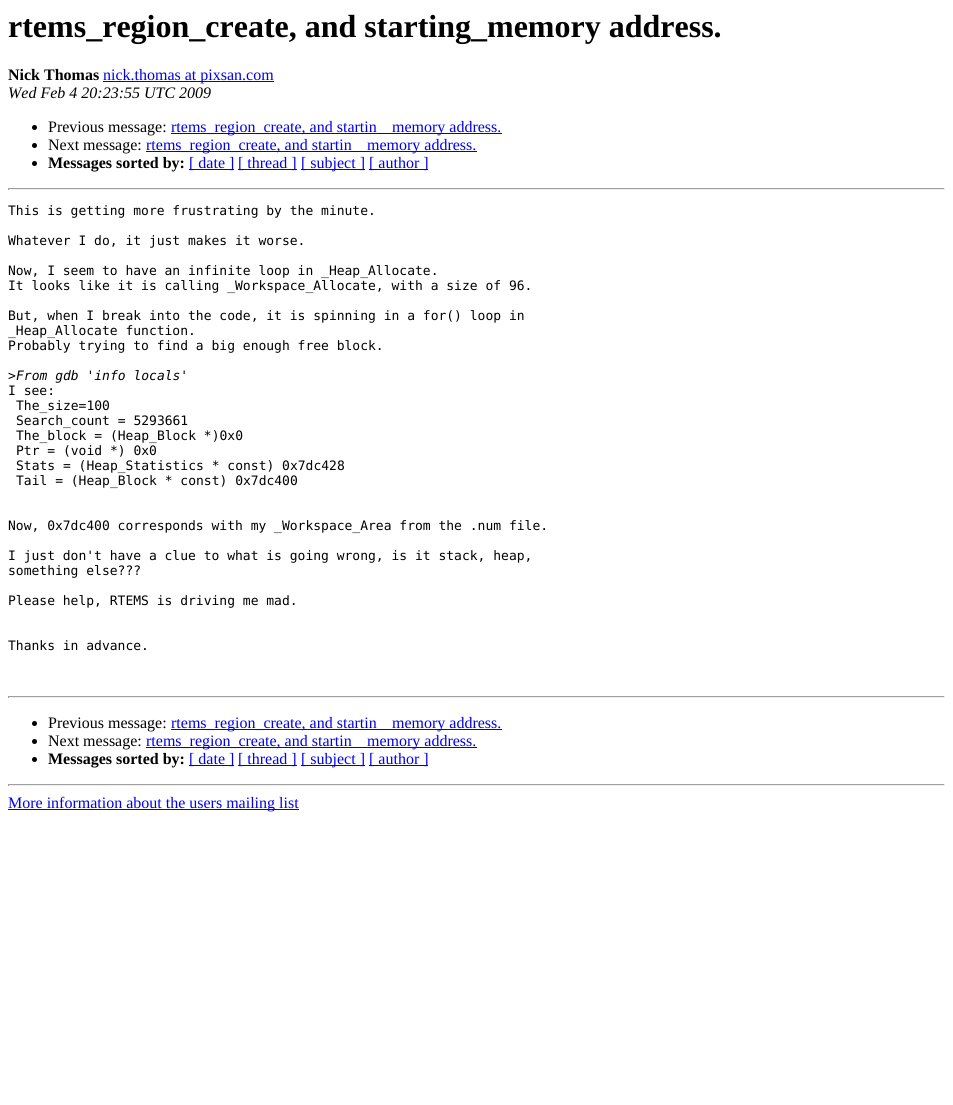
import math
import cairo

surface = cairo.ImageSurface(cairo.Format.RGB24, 953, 1105)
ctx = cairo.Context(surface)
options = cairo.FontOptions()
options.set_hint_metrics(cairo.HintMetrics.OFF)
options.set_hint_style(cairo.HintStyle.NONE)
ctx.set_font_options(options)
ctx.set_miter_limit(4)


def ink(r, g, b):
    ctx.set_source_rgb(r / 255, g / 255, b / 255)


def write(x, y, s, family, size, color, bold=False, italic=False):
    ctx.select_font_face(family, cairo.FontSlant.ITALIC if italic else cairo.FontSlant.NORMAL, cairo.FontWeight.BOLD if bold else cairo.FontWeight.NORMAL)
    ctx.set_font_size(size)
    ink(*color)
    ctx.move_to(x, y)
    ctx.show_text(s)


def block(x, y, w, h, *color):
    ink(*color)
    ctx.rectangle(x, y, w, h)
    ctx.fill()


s1 = dict(family="Liberation Serif", size=32, color=(0, 0, 0), bold=True)
s2 = dict(family="Liberation Serif", size=16, color=(0, 0, 0), bold=True)
s3 = dict(family="Liberation Serif", size=16, color=(0, 0, 238))
s4 = dict(family="Liberation Serif", size=16, color=(0, 0, 0), italic=True)
s5 = dict(family="Liberation Serif", size=16, color=(0, 0, 0))
s6 = dict(family="DejaVu Sans Mono", size=13, color=(0, 0, 0))
s7 = dict(family="DejaVu Sans Mono", size=13, color=(0, 0, 0), italic=True)

ink(255, 255, 255)
ctx.paint()
write(8, 37, "rtems_region_create, and starting_memory address.", **s1)
write(8, 80, "Nick Thomas", **s2)
block(103, 81, 171, 1, 0, 0, 238)
write(103, 80, "nick.thomas at pixsan.com", **s3)
write(8, 98, "Wed Feb 4 20:23:55 UTC 2009", **s4)
ctx.new_path()
ctx.arc(34.5, 127.5, 2.5, 0, 2 * math.pi)
ctx.fill()
write(48, 132, "Previous message:", **s5)
block(171, 133, 331, 1, 0, 0, 238)
write(171, 132, "rtems_region_create, and startin", **s3)
write(392, 132, "memory address.", **s3)
ink(0, 0, 0)
ctx.new_path()
ctx.arc(34.5, 145.5, 2.5, 0, 2 * math.pi)
ctx.fill()
write(48, 150, "Next message:", **s5)
block(146, 151, 331, 1, 0, 0, 238)
write(146, 150, "rtems_region_create, and startin", **s3)
write(367, 150, "memory address.", **s3)
ink(0, 0, 0)
ctx.new_path()
ctx.arc(34.5, 163.5, 2.5, 0, 2 * math.pi)
ctx.fill()
write(48, 168, "Messages sorted by:", **s2)
block(189, 169, 45, 1, 0, 0, 238)
write(189, 168, "[ date ]", **s3)
block(238, 169, 59, 1, 0, 0, 238)
write(238, 168, "[ thread ]", **s3)
block(301, 169, 64, 1, 0, 0, 238)
write(301, 168, "[ subject ]", **s3)
block(369, 169, 59, 1, 0, 0, 238)
write(369, 168, "[ author ]", **s3)
block(8, 188, 937, 1, 159, 159, 159)
block(944, 188, 1, 2, 238, 238, 238)
block(8, 189, 937, 1, 238, 238, 238)
block(8, 188, 1, 2, 159, 159, 159)
write(8, 215, "This is getting more frustrating by the minute.", **s6)
write(8, 245, "Whatever I do, it just makes it worse.", **s6)
write(8, 275, "Now, I seem to have an infinite loop in _Heap_Allocate.", **s6)
write(8, 290, "It looks like it is calling _Workspace_Allocate, with a size of 96.", **s6)
write(8, 320, "But, when I break into the code, it is spinning in a for() loop in", **s6)
write(8, 335, "_Heap_Allocate function.", **s6)
write(8, 350, "Probably trying to find a big enough free block.", **s6)
write(8, 380, ">", **s6)
write(16, 380, "From gdb 'info locals'", **s7)
write(8, 395, "I see:", **s6)
write(16, 410, "The_size=100", **s6)
write(16, 425, "Search_count = 5293661", **s6)
write(16, 440, "The_block = (Heap_Block *)0x0", **s6)
write(16, 455, "Ptr = (void *) 0x0", **s6)
write(16, 470, "Stats = (Heap_Statistics * const) 0x7dc428", **s6)
write(16, 485, "Tail = (Heap_Block * const) 0x7dc400", **s6)
write(8, 530, "Now, 0x7dc400 corresponds with my _Workspace_Area from the .num file.", **s6)
write(8, 560, "I just don't have a clue to what is going wrong, is it stack, heap,", **s6)
write(8, 575, "something else???", **s6)
write(8, 605, "Please help, RTEMS is driving me mad.", **s6)
write(8, 650, "Thanks in advance.", **s6)
block(8, 696, 937, 1, 159, 159, 159)
block(944, 696, 1, 2, 238, 238, 238)
block(8, 697, 937, 1, 238, 238, 238)
block(8, 696, 1, 2, 159, 159, 159)
ink(0, 0, 0)
ctx.new_path()
ctx.arc(34.5, 723.5, 2.5, 0, 2 * math.pi)
ctx.fill()
write(48, 728, "Previous message:", **s5)
block(171, 729, 331, 1, 0, 0, 238)
write(171, 728, "rtems_region_create, and startin", **s3)
write(392, 728, "memory address.", **s3)
ink(0, 0, 0)
ctx.new_path()
ctx.arc(34.5, 741.5, 2.5, 0, 2 * math.pi)
ctx.fill()
write(48, 746, "Next message:", **s5)
block(146, 747, 331, 1, 0, 0, 238)
write(146, 746, "rtems_region_create, and startin", **s3)
write(367, 746, "memory address.", **s3)
ink(0, 0, 0)
ctx.new_path()
ctx.arc(34.5, 759.5, 2.5, 0, 2 * math.pi)
ctx.fill()
write(48, 764, "Messages sorted by:", **s2)
block(189, 765, 45, 1, 0, 0, 238)
write(189, 764, "[ date ]", **s3)
block(238, 765, 59, 1, 0, 0, 238)
write(238, 764, "[ thread ]", **s3)
block(301, 765, 64, 1, 0, 0, 238)
write(301, 764, "[ subject ]", **s3)
block(369, 765, 59, 1, 0, 0, 238)
write(369, 764, "[ author ]", **s3)
block(8, 784, 937, 1, 159, 159, 159)
block(944, 784, 1, 2, 238, 238, 238)
block(8, 785, 937, 1, 238, 238, 238)
block(8, 784, 1, 2, 159, 159, 159)
block(8, 809, 291, 1, 0, 0, 238)
write(8, 808, "More information about the users mailing list", **s3)
surface.write_to_png("screenshot.png")
